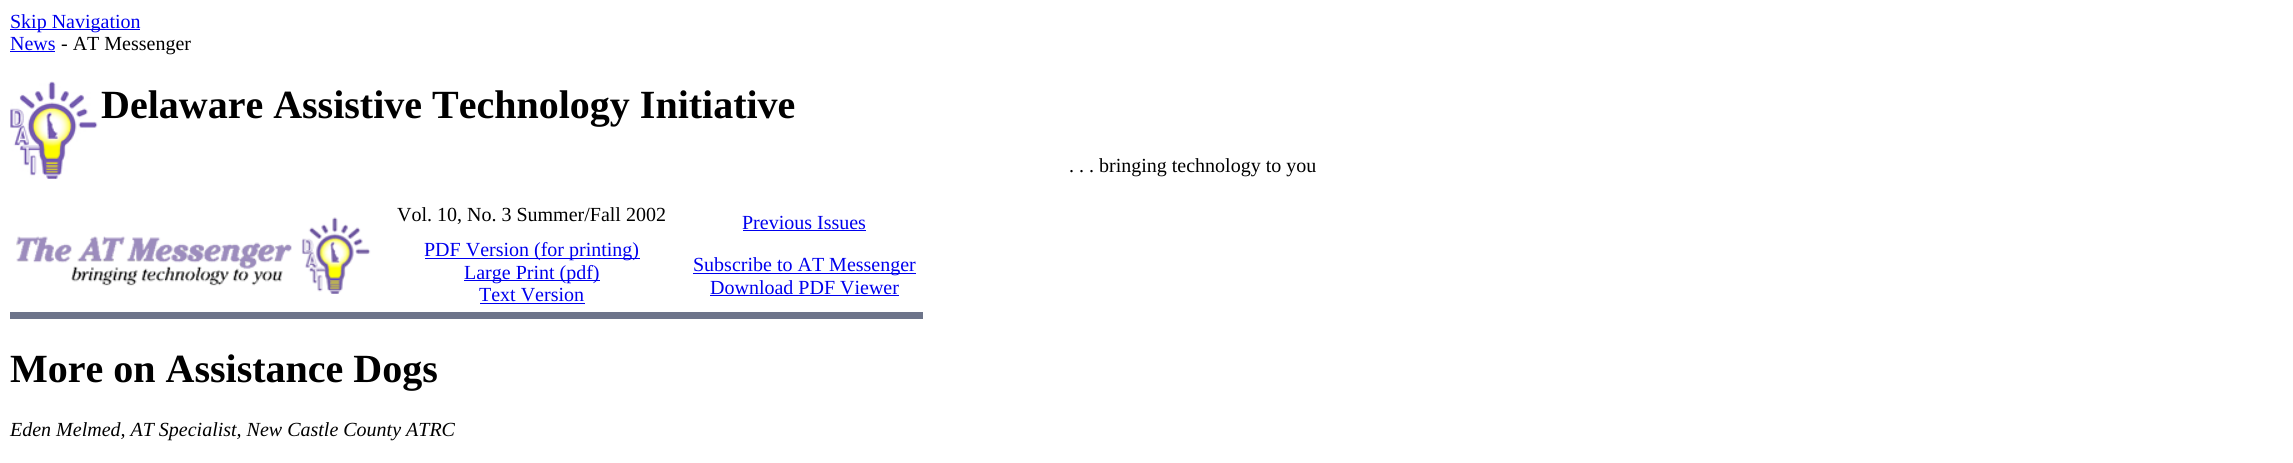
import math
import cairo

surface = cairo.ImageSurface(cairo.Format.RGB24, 2293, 463)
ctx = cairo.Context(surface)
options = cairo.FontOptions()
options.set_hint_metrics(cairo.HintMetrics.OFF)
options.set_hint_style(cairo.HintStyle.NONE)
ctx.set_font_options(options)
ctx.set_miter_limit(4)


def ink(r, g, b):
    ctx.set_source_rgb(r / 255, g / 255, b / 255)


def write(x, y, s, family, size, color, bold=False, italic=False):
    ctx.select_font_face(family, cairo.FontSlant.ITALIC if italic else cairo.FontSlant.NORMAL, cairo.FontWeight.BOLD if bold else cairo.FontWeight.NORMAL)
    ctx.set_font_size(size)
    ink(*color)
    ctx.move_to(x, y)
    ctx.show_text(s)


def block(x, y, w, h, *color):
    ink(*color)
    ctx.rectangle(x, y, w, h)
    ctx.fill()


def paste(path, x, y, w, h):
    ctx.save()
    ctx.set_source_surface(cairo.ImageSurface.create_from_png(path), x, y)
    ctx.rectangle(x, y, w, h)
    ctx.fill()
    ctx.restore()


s1 = dict(family="Liberation Serif", size=20, color=(0, 0, 238))
s2 = dict(family="Liberation Serif", size=20, color=(0, 0, 0))
s3 = dict(family="Liberation Serif", size=40, color=(0, 0, 0), bold=True)
s4 = dict(family="Liberation Serif", size=20, color=(0, 0, 0), italic=True)

ink(255, 255, 255)
ctx.paint()
block(10, 29, 130, 1, 0, 0, 238)
write(10, 28, "Skip Navigation", **s1)
write(10, 50, "News", **s1)
block(10, 51, 45, 1, 0, 0, 238)
write(61, 50, "- AT Messenger", **s2)
paste("pic1.png", 10, 81, 88, 98)
write(101, 118, "Delaware Assistive Technology Initiative", **s3)
write(1069, 172, ". . . bringing technology to you", **s2)
paste("pic2.png", 16, 217, 355, 77)
write(397, 221, "Vol. 10, No. 3 Summer/Fall 2002", **s2)
write(742, 229, "Previous Issues", **s1)
block(743, 230, 123, 1, 0, 0, 238)
block(693, 273, 223, 1, 0, 0, 238)
write(693, 271, "Subscribe to AT Messenger", **s1)
write(710, 294, "Download PDF Viewer", **s1)
block(710, 295, 189, 1, 0, 0, 238)
block(425, 258, 215, 1, 0, 0, 238)
write(424, 256, "PDF Version (for printing)", **s1)
block(464, 280, 136, 1, 0, 0, 238)
write(464, 279, "Large Print (pdf)", **s1)
write(479, 301, "Text Version", **s1)
block(480, 303, 105, 1, 0, 0, 238)
block(10, 312, 913, 7, 109, 116, 138)
write(10, 382, "More on Assistance Dogs", **s3)
write(10, 436, "Eden Melmed, AT Specialist, New Castle County ATRC", **s4)
surface.write_to_png("screenshot.png")
